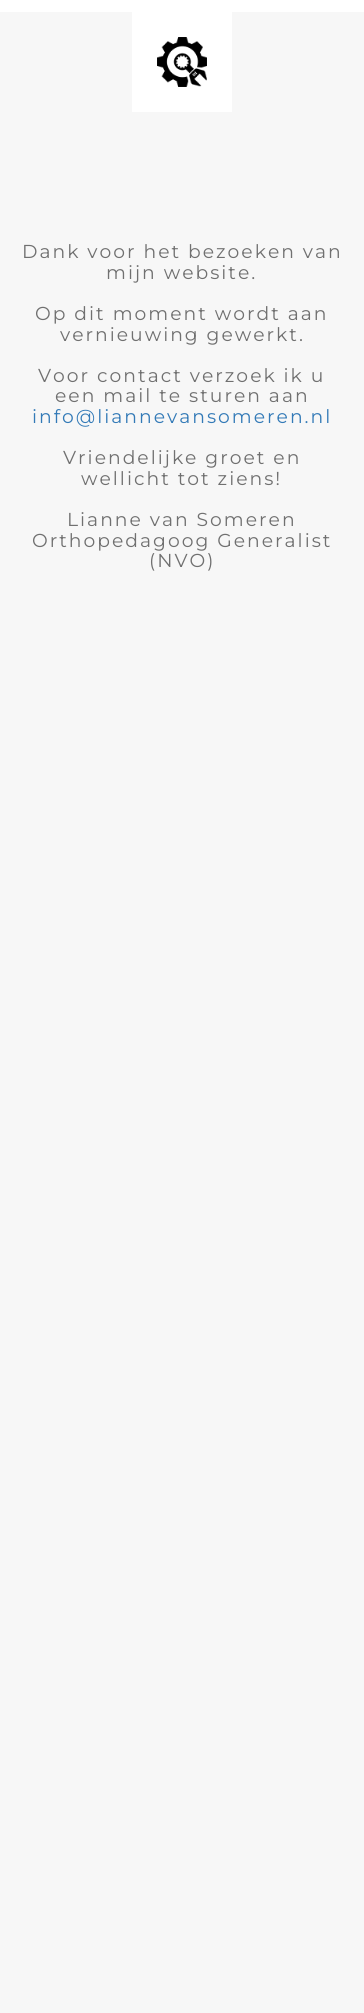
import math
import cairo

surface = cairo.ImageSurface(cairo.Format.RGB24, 364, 2013)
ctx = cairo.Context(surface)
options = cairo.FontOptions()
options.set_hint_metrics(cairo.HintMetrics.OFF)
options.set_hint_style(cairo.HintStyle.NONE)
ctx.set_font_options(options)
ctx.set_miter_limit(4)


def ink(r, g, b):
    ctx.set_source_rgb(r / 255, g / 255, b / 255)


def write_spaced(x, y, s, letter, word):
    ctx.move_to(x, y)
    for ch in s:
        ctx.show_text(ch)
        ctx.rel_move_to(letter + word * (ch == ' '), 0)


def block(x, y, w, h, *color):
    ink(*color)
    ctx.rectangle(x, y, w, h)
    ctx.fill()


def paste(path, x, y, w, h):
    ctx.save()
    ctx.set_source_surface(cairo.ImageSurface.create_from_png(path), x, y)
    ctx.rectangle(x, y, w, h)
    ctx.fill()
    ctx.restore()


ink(247, 247, 247)
ctx.paint()
block(0, 0, 364, 12, 255, 255, 255)
block(132, 12, 100, 100, 255, 255, 255)
paste("pic1.png", 157, 37, 50, 50)
ctx.select_font_face("Montserrat Thin")
ctx.set_font_size(18.75)
ink(112, 112, 112)
write_spaced(22, 258, "Dank voor het bezoeken van", 2, 0)
write_spaced(106, 279, "mijn website.", 2, 0)
write_spaced(35, 320, "Op dit moment wordt aan", 2, 0)
write_spaced(60, 341, "vernieuwing gewerkt.", 2, 0)
write_spaced(38, 382, "Voor contact verzoek ik u", 2, 0)
write_spaced(55, 402, "een mail te sturen aan", 2, 0)
ink(51, 122, 183)
write_spaced(32, 423, "info@liannevansomeren.nl", 2, 0)
ink(112, 112, 112)
write_spaced(63, 464, "Vriendelijke groet en", 2, 0)
write_spaced(81, 485, "wellicht tot ziens!", 2, 0)
write_spaced(67, 526, "Lianne van Someren", 2, 0)
write_spaced(32, 547, "Orthopedagoog Generalist", 2, 0)
write_spaced(149, 567, "(NVO)", 2, 0)
surface.write_to_png("screenshot.png")
